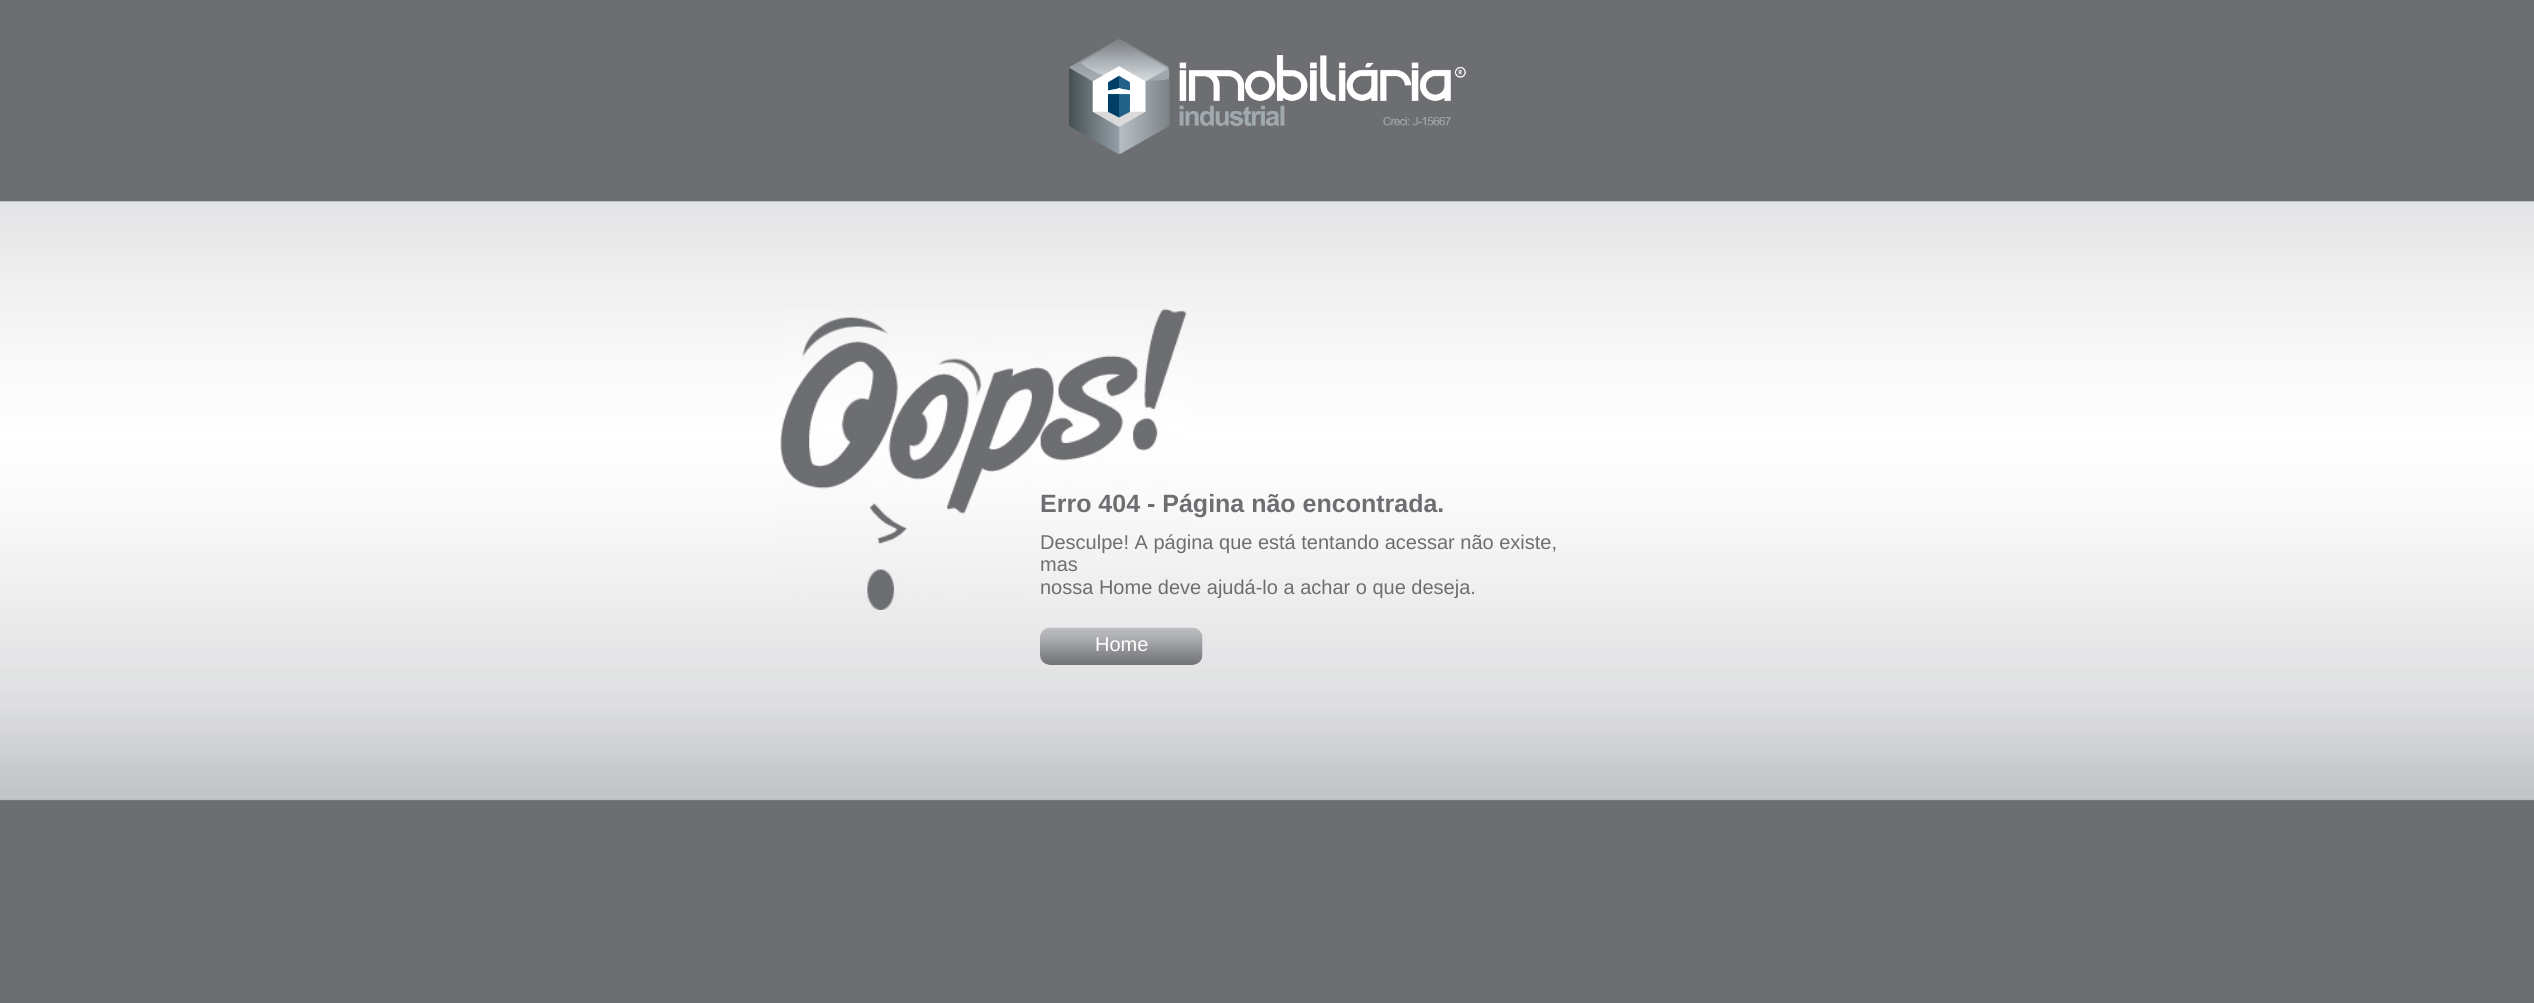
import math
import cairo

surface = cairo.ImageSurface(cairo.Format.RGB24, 2534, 1003)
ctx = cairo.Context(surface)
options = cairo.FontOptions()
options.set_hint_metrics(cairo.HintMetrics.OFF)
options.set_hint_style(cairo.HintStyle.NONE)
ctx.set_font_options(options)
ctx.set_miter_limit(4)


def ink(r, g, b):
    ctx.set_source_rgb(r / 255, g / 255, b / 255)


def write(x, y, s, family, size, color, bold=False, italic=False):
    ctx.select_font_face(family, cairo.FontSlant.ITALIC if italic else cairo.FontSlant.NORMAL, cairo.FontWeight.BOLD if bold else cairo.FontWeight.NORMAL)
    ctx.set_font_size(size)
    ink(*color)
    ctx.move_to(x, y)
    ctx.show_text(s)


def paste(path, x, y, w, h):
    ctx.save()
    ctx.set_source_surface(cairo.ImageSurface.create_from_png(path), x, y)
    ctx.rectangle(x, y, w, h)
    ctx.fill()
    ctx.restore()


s1 = dict(family="Liberation Sans", size=25, color=(109, 110, 113), bold=True)
s2 = dict(family="Liberation Sans", size=20, color=(109, 110, 113))
s3 = dict(family="Liberation Sans", size=20, color=(255, 255, 255))

ink(109, 110, 113)
ctx.paint()
paste("pic1.png", 0, 201, 2534, 600)
paste("pic2.png", 1068, 39, 398, 115)
paste("pic3.png", 780, 308, 407, 302)
write(1040, 512, "Erro 404 - Página não encontrada.", **s1)
write(1040, 549, "Desculpe! A página que está tentando acessar não existe,", **s2)
write(1040, 571, "mas", **s2)
write(1040, 594, "nossa Home deve ajudá-lo a achar o que deseja.", **s2)
paste("pic4.png", 1040, 627, 163, 38)
write(1095, 651, "Home", **s3)
surface.write_to_png("screenshot.png")
